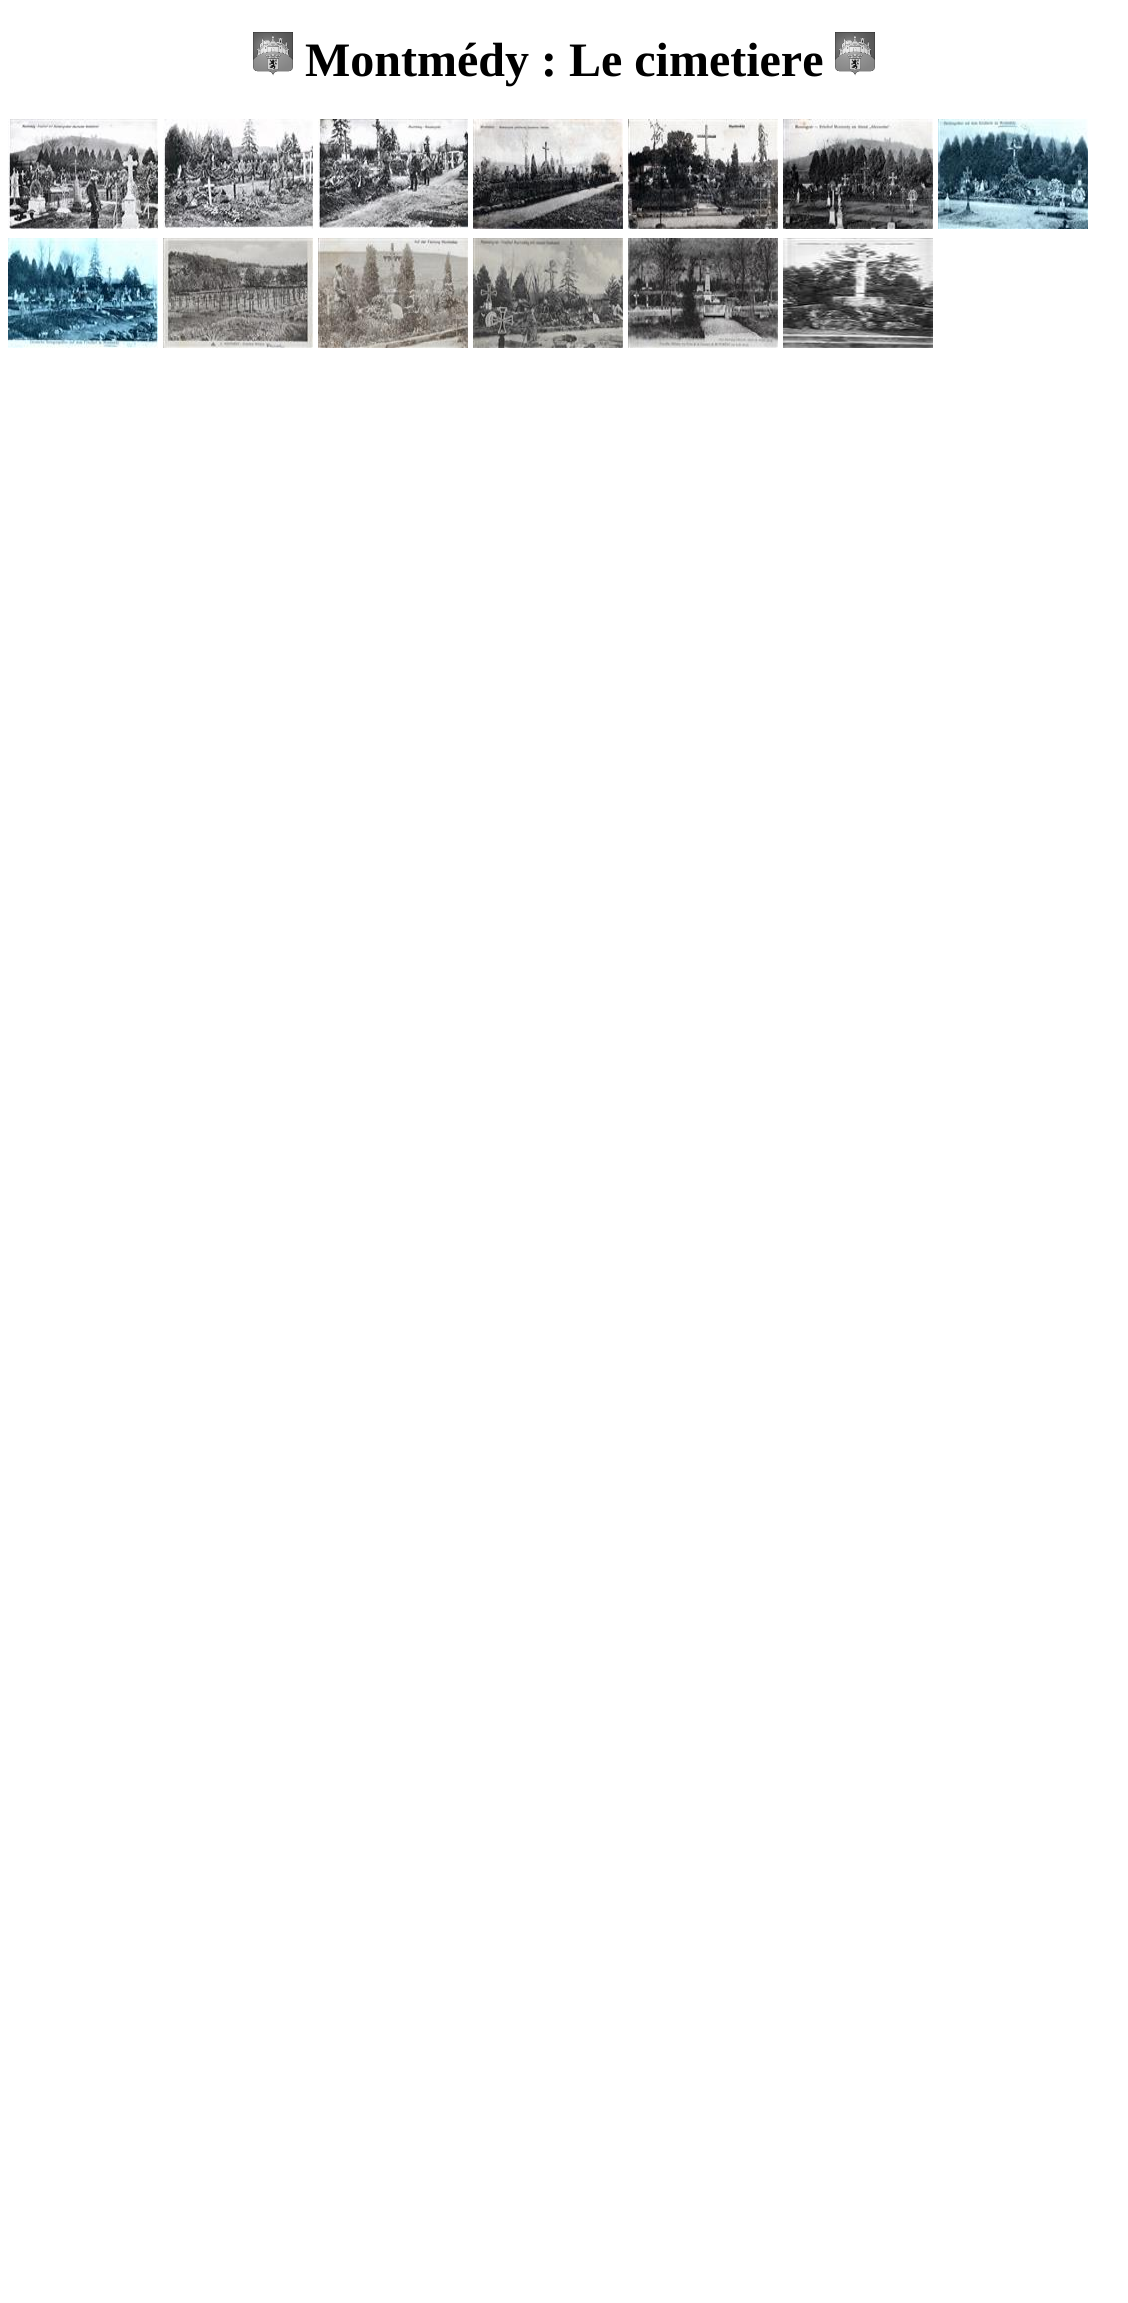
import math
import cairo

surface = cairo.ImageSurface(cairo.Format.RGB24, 1128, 2303)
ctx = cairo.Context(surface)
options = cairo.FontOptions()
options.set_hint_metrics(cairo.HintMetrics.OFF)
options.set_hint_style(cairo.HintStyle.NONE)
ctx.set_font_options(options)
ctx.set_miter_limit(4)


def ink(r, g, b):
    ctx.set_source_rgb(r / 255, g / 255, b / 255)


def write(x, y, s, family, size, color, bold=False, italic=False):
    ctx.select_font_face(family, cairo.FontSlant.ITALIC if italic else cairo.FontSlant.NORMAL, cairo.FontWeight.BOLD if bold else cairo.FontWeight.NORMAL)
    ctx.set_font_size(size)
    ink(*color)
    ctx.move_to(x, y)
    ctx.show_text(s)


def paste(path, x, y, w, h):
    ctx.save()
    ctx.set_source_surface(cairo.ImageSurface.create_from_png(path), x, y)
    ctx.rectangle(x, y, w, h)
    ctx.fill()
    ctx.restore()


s1 = dict(family="Liberation Serif", size=48, color=(0, 0, 0), bold=True)

ink(255, 255, 255)
ctx.paint()
paste("pic1.png", 253, 32, 40, 44)
write(305, 76, "Montmédy : Le cimetiere", **s1)
paste("pic1.png", 835, 32, 40, 44)
paste("pic2.png", 8, 119, 150, 110)
paste("pic3.png", 163, 119, 150, 110)
paste("pic4.png", 318, 119, 150, 109)
paste("pic5.png", 473, 119, 150, 110)
paste("pic6.png", 628, 119, 150, 110)
paste("pic7.png", 783, 119, 150, 110)
paste("pic8.png", 938, 119, 150, 110)
paste("pic9.png", 8, 238, 150, 110)
paste("pic10.png", 163, 238, 150, 110)
paste("pic11.png", 318, 238, 150, 110)
paste("pic12.png", 473, 238, 150, 110)
paste("pic13.png", 628, 238, 150, 110)
paste("pic14.png", 783, 238, 150, 110)
surface.write_to_png("screenshot.png")
